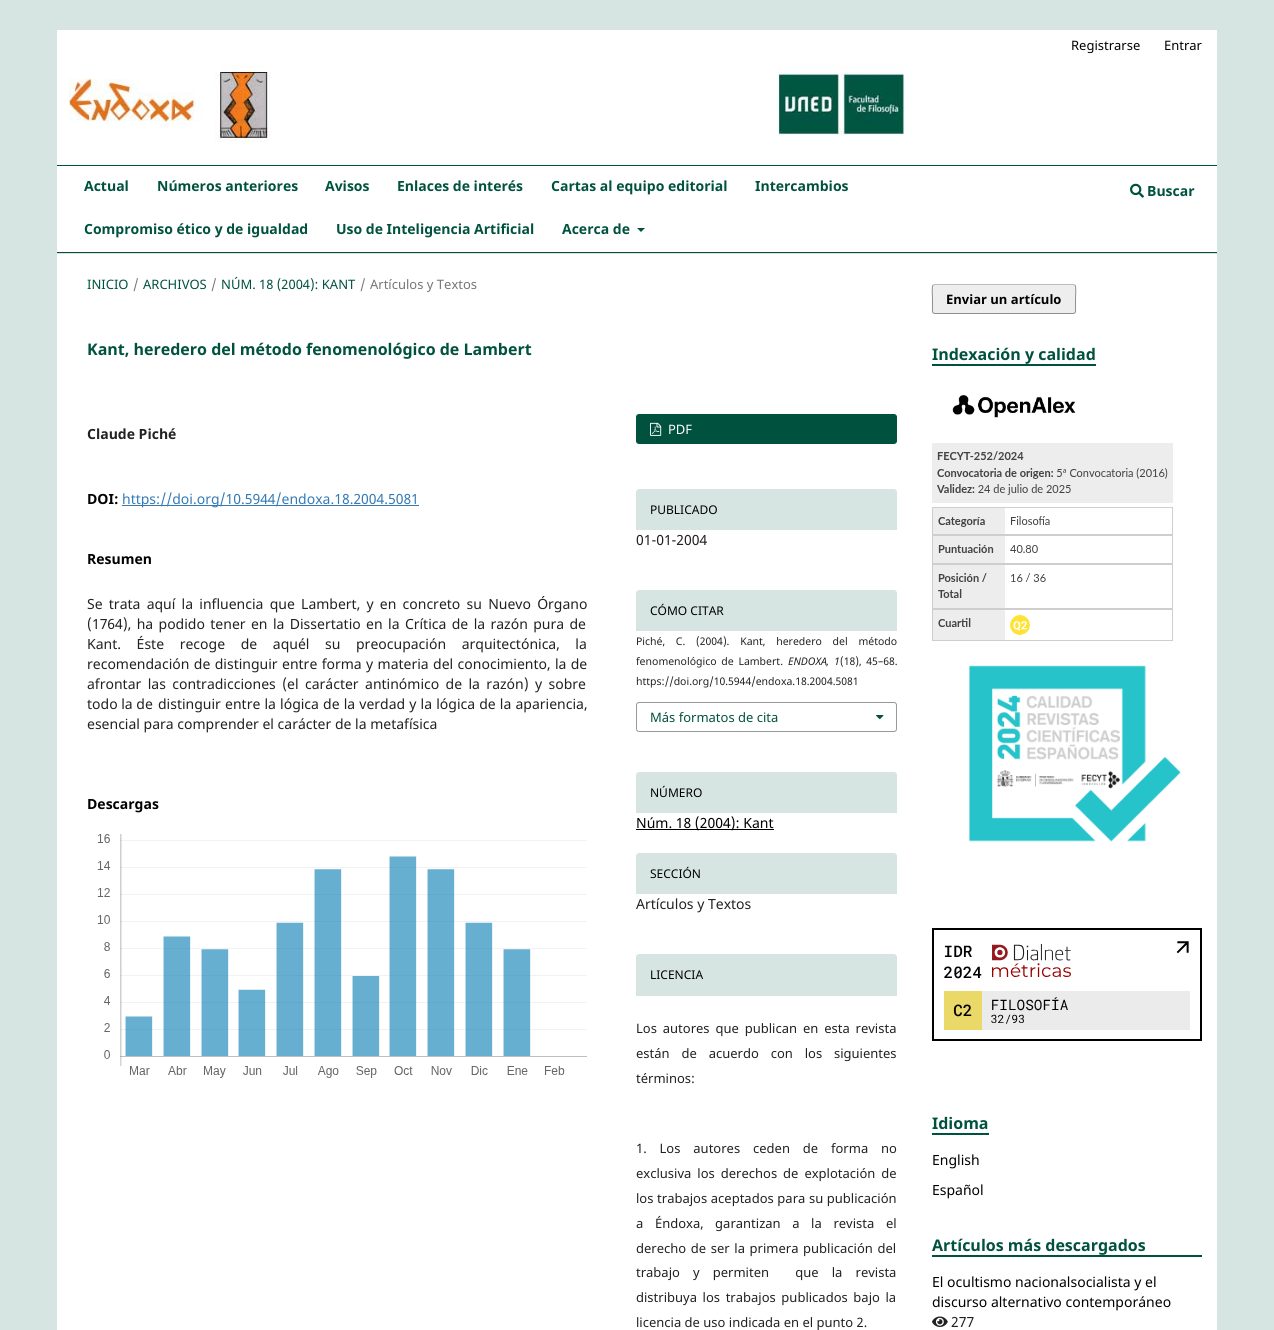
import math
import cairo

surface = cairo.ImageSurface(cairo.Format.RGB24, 1274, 1330)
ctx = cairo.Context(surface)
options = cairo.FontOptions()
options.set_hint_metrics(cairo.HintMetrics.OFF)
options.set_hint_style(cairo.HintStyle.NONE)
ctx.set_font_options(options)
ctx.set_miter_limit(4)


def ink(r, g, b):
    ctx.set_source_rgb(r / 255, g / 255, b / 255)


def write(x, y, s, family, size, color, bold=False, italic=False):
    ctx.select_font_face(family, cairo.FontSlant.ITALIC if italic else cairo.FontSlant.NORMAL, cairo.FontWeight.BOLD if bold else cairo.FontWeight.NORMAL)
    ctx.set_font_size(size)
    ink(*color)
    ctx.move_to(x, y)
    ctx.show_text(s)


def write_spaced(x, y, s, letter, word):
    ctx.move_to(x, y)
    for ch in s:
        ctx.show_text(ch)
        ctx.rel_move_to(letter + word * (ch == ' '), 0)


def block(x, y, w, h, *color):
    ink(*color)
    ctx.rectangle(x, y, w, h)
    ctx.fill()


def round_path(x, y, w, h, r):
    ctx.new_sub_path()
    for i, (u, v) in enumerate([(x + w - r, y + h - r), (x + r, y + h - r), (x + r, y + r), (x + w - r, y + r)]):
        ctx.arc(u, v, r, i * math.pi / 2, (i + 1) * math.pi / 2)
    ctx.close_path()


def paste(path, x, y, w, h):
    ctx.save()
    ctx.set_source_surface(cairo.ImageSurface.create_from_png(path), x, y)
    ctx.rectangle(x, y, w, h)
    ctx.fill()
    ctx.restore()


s1 = dict(family="Noto Sans", size=13, color=(0, 0, 0))
s2 = dict(family="Noto Sans", size=14, color=(0, 82, 62), bold=True)
s3 = dict(family="Noto Sans", size=13, color=(0, 82, 62))
s4 = dict(family="Noto Sans", size=13, color=(117, 117, 117))
s5 = dict(family="Noto Sans", size=16, color=(0, 82, 62), bold=True)
s6 = dict(family="Noto Sans", size=14, color=(33, 33, 33), bold=True)
s7 = dict(family="Noto Sans", size=14, color=(0, 0, 0), bold=True)
s8 = dict(family="Noto Sans", size=14, color=(51, 122, 183))
s9 = dict(family="Noto Sans", size=14, color=(33, 33, 33))
s10 = dict(family="Noto Sans", size=13, color=(255, 255, 255))
s11 = dict(family="Noto Sans", size=12, color=(0, 0, 0))
s12 = dict(family="Noto Sans", size=10.5, color=(33, 33, 33), italic=True)
s13 = dict(family="Noto Sans", size=10.5, color=(33, 33, 33))
s14 = dict(family="Noto Sans", size=14, color=(0, 0, 0))
s15 = dict(family="Noto Sans", size=13, color=(33, 33, 33))
s16 = dict(family="Noto Sans", size=13, color=(0, 0, 0), bold=True)

ink(214, 229, 226)
ctx.paint()
block(57, 30, 1160, 1300, 255, 255, 255)
block(57, 253, 1160, 1, 221, 221, 221)
write(1071, 50, "Registrarse", **s1)
write(1164, 50, "Entrar", **s1)
block(57, 165, 1160, 1, 0, 82, 62)
block(57, 252, 1160, 1, 0, 82, 62)
write(84, 191, "Actual", **s2)
write(157, 191, "Números anteriores", **s2)
write(325, 191, "Avisos", **s2)
write(397, 191, "Enlaces de interés", **s2)
write(551, 191, "Cartas al equipo editorial", **s2)
write(755, 191, "Intercambios", **s2)
write(84, 234, "Compromiso ético y de igualdad", **s2)
write(336, 234, "Uso de Inteligencia Artificial", **s2)
write(562, 234, "Acerca de", **s2)
ctx.new_path()
ctx.move_to(637, 228)
ctx.line_to(645, 228)
ctx.line_to(641, 232)
ctx.close_path()
ctx.fill()
paste("pic1.png", 1130, 183, 14, 15)
write(1147, 196, "Buscar", **s2)
paste("pic2.png", 69, 65, 836, 80)
write(87, 289, "INICIO", **s3)
write(133, 289, "/", **s4)
write(143, 289, "ARCHIVOS", **s3)
write(211, 289, "/", **s4)
write(221, 289, "NÚM. 18 (2004): KANT", **s3)
write(360, 289, "/", **s4)
write(370, 289, "Artículos y Textos", **s4)
write(87, 355, "Kant, heredero del método fenomenológico de Lambert", **s5)
write(87, 439, "Claude Piché", **s6)
write(87, 504, "DOI:", **s7)
block(122, 505, 297, 1, 51, 122, 183)
write(122, 504, "https://doi.org/10.5944/endoxa.18.2004.5081", **s8)
write(87, 564, "Resumen", **s7)
ctx.select_font_face("Noto Sans")
ink(33, 33, 33)
write_spaced(87, 609, "Se trata aquí la influencia que Lambert, y en concreto su Nuevo Órgano", 0, 2.6)
write_spaced(87, 629, "(1764), ha podido tener en la Dissertatio en la Crítica de la razón pura de", 0, 1.75)
write_spaced(87, 649, "Kant. Éste recoge de aquél su", 0, 12)
write_spaced(356, 649, "preocupación arquitectónica, la", 0, 12)
write_spaced(87, 669, "recomendación de distinguir entre forma y materia del conocimiento, la de", 0, 0.75)
write_spaced(87, 689, "afrontar las contradicciones (el carácter antinómico de la razón) y sobre", 0, 2.75)
write(87, 709, "todo la de", **s9)
write_spaced(158, 709, "distinguir entre la lógica de la verdad y la lógica de la apariencia,", 0, 0.5)
write(87, 729, "esencial para comprender el carácter de la metafísica", **s9)
write(87, 809, "Descargas", **s7)
paste("pic3.png", 97, 834, 490, 244)
ink(0, 82, 62)
round_path(636.5, 414.5, 260, 29, 2.5)
ctx.fill_preserve()
ctx.set_line_width(1)
ctx.stroke()
paste("pic4.png", 650, 422, 12, 14)
write(668, 434, "PDF", **s10)
ink(214, 229, 226)
ctx.new_path()
ctx.move_to(639, 489)
ctx.line_to(894, 489)
ctx.curve_to(895.5, 489, 897, 490.5, 897, 492)
ctx.line_to(897, 530)
ctx.line_to(636, 530)
ctx.line_to(636, 492)
ctx.curve_to(636, 490.5, 637.5, 489, 639, 489)
ctx.close_path()
ctx.fill()
write(650, 514, "PUBLICADO", **s11)
write(636, 545, "01-01-2004", **s9)
ink(214, 229, 226)
ctx.new_path()
ctx.move_to(639, 590)
ctx.line_to(894, 590)
ctx.curve_to(895.5, 590, 897, 591.5, 897, 593)
ctx.line_to(897, 631)
ctx.line_to(636, 631)
ctx.line_to(636, 593)
ctx.curve_to(636, 591.5, 637.5, 590, 639, 590)
ctx.close_path()
ctx.fill()
write(650, 615, "CÓMO CITAR", **s11)
ctx.set_font_size(10.5)
ink(33, 33, 33)
write_spaced(636, 645, "Piché, C. (2004). Kant, heredero del método", 0, 8)
write_spaced(636, 665, "fenomenológico de Lambert.", 0, 2)
write(788, 665, "ENDOXA", **s12)
write(826, 665, ",", **s13)
write(834, 665, "1", **s12)
ctx.select_font_face("Noto Sans")
write_spaced(840, 665, "(18), 45–68.", 0, 2)
write(636, 685, "https://doi.org/10.5944/endoxa.18.2004.5081", **s13)
round_path(636.5, 702.5, 260, 29, 2.5)
ink(153, 153, 153)
ctx.stroke()
write(650, 722, "Más formatos de cita", **s3)
paste("pic5.png", 876, 715, 8, 5)
ink(214, 229, 226)
ctx.new_path()
ctx.move_to(639, 772)
ctx.line_to(894, 772)
ctx.curve_to(895.5, 772, 897, 773.5, 897, 775)
ctx.line_to(897, 813)
ctx.line_to(636, 813)
ctx.line_to(636, 775)
ctx.curve_to(636, 773.5, 637.5, 772, 639, 772)
ctx.close_path()
ctx.fill()
write(650, 797, "NÚMERO", **s11)
block(636, 829, 138, 1, 0, 0, 0)
write(636, 828, "Núm. 18 (2004): Kant", **s14)
ink(214, 229, 226)
ctx.new_path()
ctx.move_to(639, 853)
ctx.line_to(894, 853)
ctx.curve_to(895.5, 853, 897, 854.5, 897, 856)
ctx.line_to(897, 894)
ctx.line_to(636, 894)
ctx.line_to(636, 856)
ctx.curve_to(636, 854.5, 637.5, 853, 639, 853)
ctx.close_path()
ctx.fill()
write(650, 878, "SECCIÓN", **s11)
write(636, 909, "Artículos y Textos", **s9)
ink(214, 229, 226)
ctx.new_path()
ctx.move_to(639, 954)
ctx.line_to(894, 954)
ctx.curve_to(895.5, 954, 897, 955.5, 897, 957)
ctx.line_to(897, 996)
ctx.line_to(636, 996)
ctx.line_to(636, 957)
ctx.curve_to(636, 955.5, 637.5, 954, 639, 954)
ctx.close_path()
ctx.fill()
write(650, 979, "LICENCIA", **s11)
ctx.set_font_size(13)
ink(33, 33, 33)
write_spaced(636, 1033, "Los autores que publican en esta revista", 0, 2.5)
write_spaced(636, 1058, "están de acuerdo con los siguientes", 0, 8.5)
write(636, 1083, "términos:", **s15)
write_spaced(636, 1153, "1. Los autores ceden de forma no", 0, 9.5)
write_spaced(636, 1178, "exclusiva los derechos de explotación de", 0, 2.6)
write_spaced(636, 1203, "los trabajos aceptados para su publicación", 0, 0.25)
write_spaced(636, 1228, "a Éndoxa, garantizan a la revista el", 0, 8.25)
write_spaced(636, 1253, "derecho de ser la primera publicación del", 0, 1.25)
write_spaced(636, 1277, "trabajo y permiten  que la revista", 0, 9.75)
write_spaced(636, 1302, "distribuya los trabajos publicados bajo la", 0, 2.25)
write(636, 1327, "licencia de uso indicada en el punto 2.", **s15)
ink(238, 238, 238)
round_path(932, 284, 144, 30, 3)
ctx.fill()
ctx.new_path()
ctx.move_to(933, 285)
ctx.line_to(935, 284.5)
ctx.line_to(1073, 284.5)
ctx.line_to(1075, 285)
ink(187, 187, 187)
ctx.stroke()
ctx.new_path()
ctx.move_to(1075, 285)
ctx.curve_to(1076.5, 287, 1075.5, 296.5, 1075.5, 299)
ctx.line_to(1075.5, 307)
ctx.curve_to(1075.5, 309, 1076.5, 313.5, 1073, 313.5)
ctx.line_to(935, 313.5)
ctx.curve_to(931.5, 313.5, 932.5, 309, 932.5, 307)
ctx.line_to(932.5, 299)
ctx.curve_to(932.5, 296.5, 931.5, 287, 933, 285)
ctx.set_source_rgba(0, 0, 0, 0.4)
ctx.stroke()
write(946, 304, "Enviar un artículo", **s16)
block(932, 364, 164, 2, 0, 82, 62)
write(932, 360, "Indexación y calidad", **s5)
paste("pic6.png", 952, 395, 124, 23)
paste("pic7.png", 932, 443, 249, 399)
paste("pic8.png", 932, 928, 270, 113)
block(932, 1133, 57, 2, 0, 82, 62)
write(932, 1129, "Idioma", **s5)
write(932, 1165, "English", **s14)
write(932, 1195, "Español", **s14)
block(932, 1255, 270, 2, 0, 82, 62)
write(932, 1251, "Artículos más descargados", **s5)
write(932, 1287, "El ocultismo nacionalsocialista y el", **s14)
write(932, 1307, "discurso alternativo contemporáneo", **s14)
paste("pic9.png", 932, 1316, 16, 11)
write(951, 1327, "277", **s9)
surface.write_to_png("screenshot.png")
